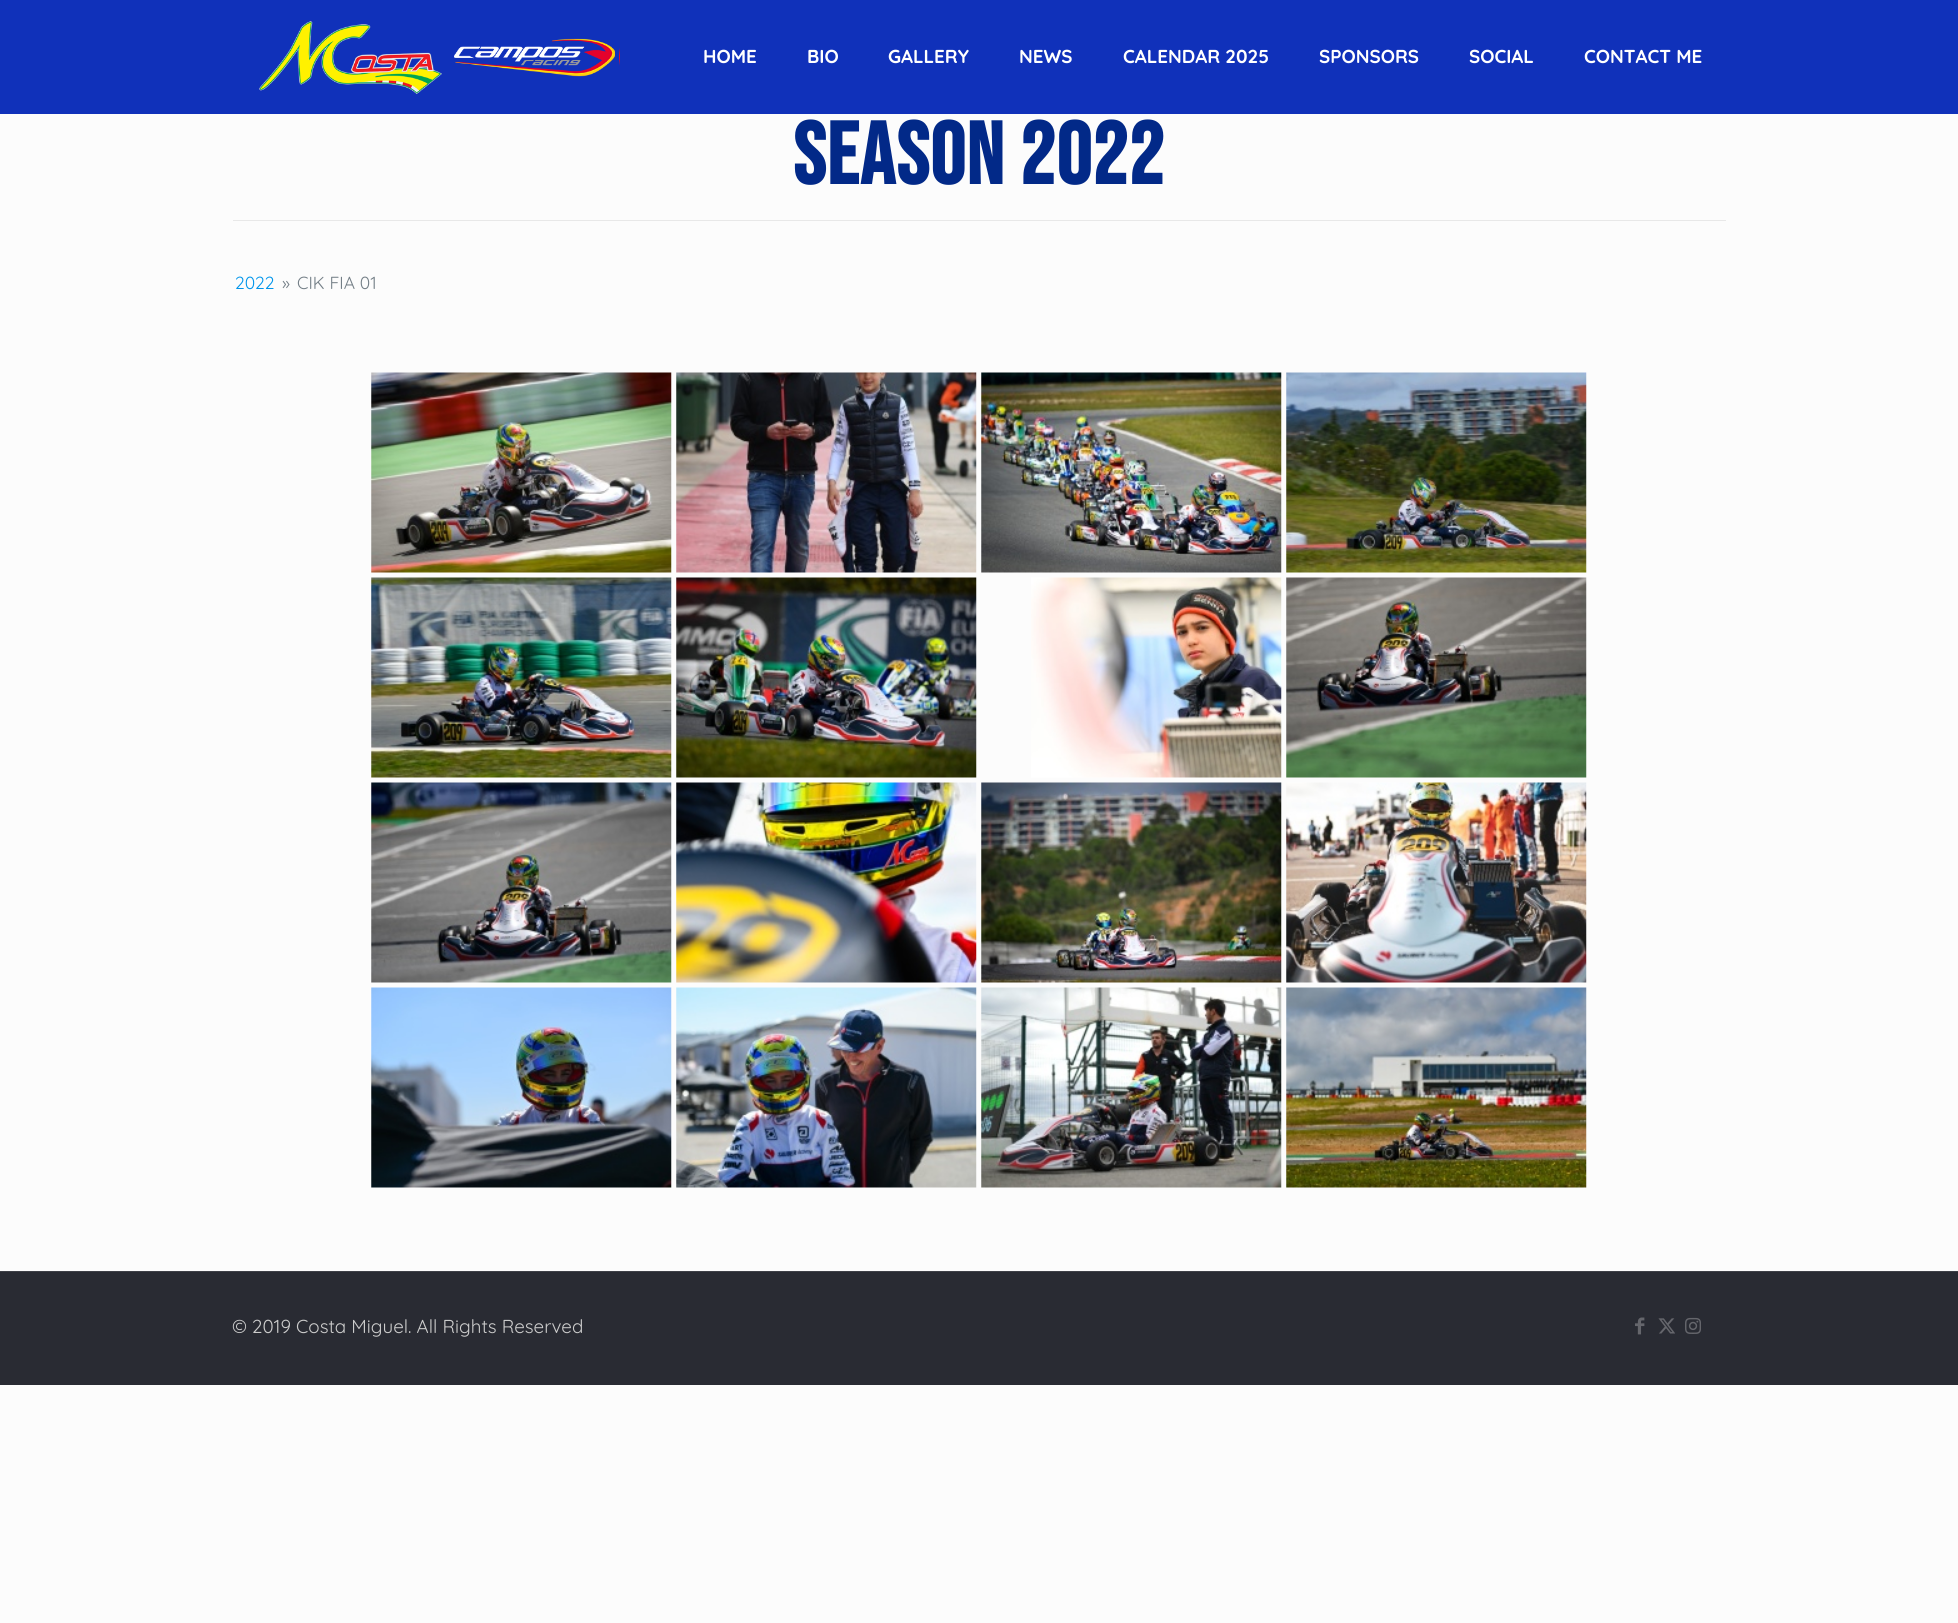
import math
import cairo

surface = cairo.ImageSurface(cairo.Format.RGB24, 1958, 1623)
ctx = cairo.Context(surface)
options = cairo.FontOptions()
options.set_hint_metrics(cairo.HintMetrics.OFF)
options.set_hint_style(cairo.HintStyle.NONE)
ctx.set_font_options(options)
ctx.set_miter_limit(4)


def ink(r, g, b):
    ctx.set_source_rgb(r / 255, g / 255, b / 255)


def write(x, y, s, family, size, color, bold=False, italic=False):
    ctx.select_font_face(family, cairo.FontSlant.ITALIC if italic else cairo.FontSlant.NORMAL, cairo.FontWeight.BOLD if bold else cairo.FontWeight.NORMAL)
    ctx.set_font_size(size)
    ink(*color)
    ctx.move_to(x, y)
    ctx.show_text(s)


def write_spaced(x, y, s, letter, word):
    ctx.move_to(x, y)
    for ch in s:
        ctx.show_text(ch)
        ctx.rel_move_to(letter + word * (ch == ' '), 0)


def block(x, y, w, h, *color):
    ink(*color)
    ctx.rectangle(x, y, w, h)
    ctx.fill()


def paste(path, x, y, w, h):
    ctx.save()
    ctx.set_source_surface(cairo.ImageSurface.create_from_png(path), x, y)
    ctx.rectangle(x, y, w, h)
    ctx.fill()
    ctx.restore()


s1 = dict(family="Quicksand", size=18.75, color=(255, 255, 255), bold=True)
s2 = dict(family="Quicksand", size=17.5, color=(0, 149, 235))
s3 = dict(family="Quicksand", size=17.5, color=(115, 126, 134))
s4 = dict(family="Quicksand", size=18.75, color=(204, 204, 204))

ink(252, 252, 252)
ctx.paint()
block(0, 0, 1958, 114, 16, 49, 186)
paste("pic1.png", 259, 21, 361, 73)
write(703, 63, "HOME", **s1)
write(807, 63, "BIO", **s1)
write(888, 63, "GALLERY", **s1)
write(1019, 63, "NEWS", **s1)
write(1123, 63, "CALENDAR 2025", **s1)
write(1319, 63, "SPONSORS", **s1)
write(1469, 63, "SOCIAL", **s1)
write(1584, 63, "CONTACT ME", **s1)
ctx.select_font_face("Bebas Neue", cairo.FontSlant.NORMAL, cairo.FontWeight.BOLD)
ctx.set_font_size(87.5)
ink(2, 41, 136)
write_spaced(793, 184, "SEASON 2022", 1.25, 0)
block(233, 220, 1493, 1, 232, 232, 232)
write(235, 289, "2022", **s2)
write(282, 289, "»", **s3)
write(297, 289, "CIK FIA 01", **s3)
paste("pic2.png", 371, 372, 301, 201)
paste("pic3.png", 676, 372, 301, 201)
paste("pic4.png", 981, 372, 301, 201)
paste("pic5.png", 1286, 372, 301, 201)
paste("pic6.png", 371, 577, 301, 201)
paste("pic7.png", 676, 577, 301, 201)
paste("pic8.png", 1031, 577, 251, 201)
paste("pic9.png", 1286, 577, 301, 201)
paste("pic10.png", 371, 782, 301, 201)
paste("pic11.png", 676, 782, 301, 201)
paste("pic12.png", 981, 782, 301, 201)
paste("pic13.png", 1286, 782, 301, 201)
paste("pic14.png", 371, 987, 301, 201)
paste("pic15.png", 676, 987, 301, 201)
paste("pic16.png", 981, 987, 301, 201)
paste("pic17.png", 1286, 987, 301, 201)
block(0, 1272, 1958, 113, 41, 43, 51)
block(0, 1271, 1958, 1, 62, 64, 71)
write(232, 1333, "© 2019 Costa Miguel. All Rights Reserved", **s4)
paste("pic18.png", 1635, 1317, 10, 18)
paste("pic19.png", 1658, 1318, 17, 16)
paste("pic20.png", 1685, 1317, 16, 17)
surface.write_to_png("screenshot.png")
